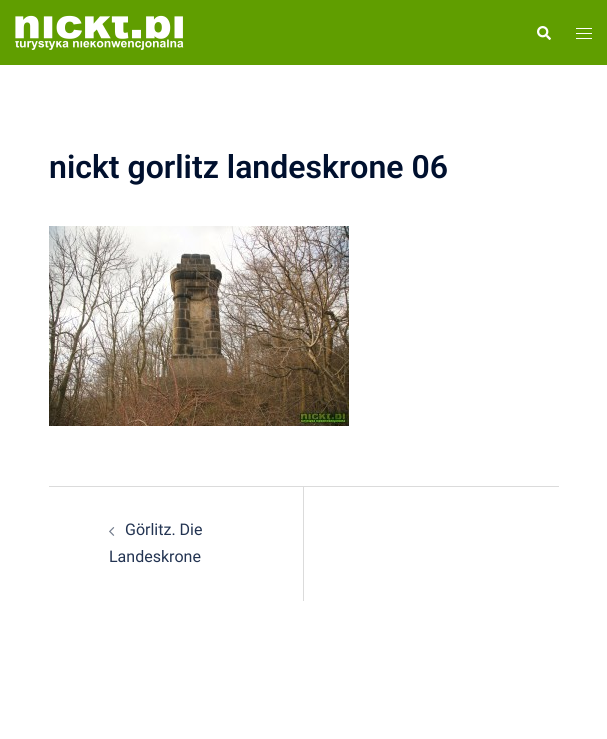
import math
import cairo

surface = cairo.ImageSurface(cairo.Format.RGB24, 607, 739)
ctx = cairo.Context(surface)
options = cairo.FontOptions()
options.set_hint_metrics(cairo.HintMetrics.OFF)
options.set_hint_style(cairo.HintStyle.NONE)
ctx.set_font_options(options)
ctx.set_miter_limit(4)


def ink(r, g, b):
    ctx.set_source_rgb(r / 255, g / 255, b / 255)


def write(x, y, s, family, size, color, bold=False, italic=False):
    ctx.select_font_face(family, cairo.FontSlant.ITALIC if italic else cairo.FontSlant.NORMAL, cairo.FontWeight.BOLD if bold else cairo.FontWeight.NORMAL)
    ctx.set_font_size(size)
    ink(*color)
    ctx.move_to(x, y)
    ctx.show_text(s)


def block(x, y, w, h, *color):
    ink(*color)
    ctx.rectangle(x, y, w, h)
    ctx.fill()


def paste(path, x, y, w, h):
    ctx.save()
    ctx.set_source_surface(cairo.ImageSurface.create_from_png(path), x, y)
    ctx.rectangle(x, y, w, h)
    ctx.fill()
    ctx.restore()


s1 = dict(family="Roboto SemiBold", size=32, color=(0, 16, 46))
s2 = dict(family="Roboto", size=16, color=(35, 52, 82))

ink(255, 255, 255)
ctx.paint()
block(0, 0, 607, 65, 96, 158, 0)
paste("pic1.png", 15, 15, 169, 35)
paste("pic2.png", 537, 26, 14, 14)
block(576, 28, 16, 1, 255, 255, 255)
block(576, 33, 16, 1, 255, 255, 255)
block(576, 38, 16, 1, 255, 255, 255)
write(49, 178, "nickt gorlitz landeskrone 06", **s1)
paste("pic3.png", 49, 226, 300, 200)
block(49, 486, 510, 1, 219, 219, 219)
block(303, 487, 1, 114, 219, 219, 219)
paste("pic4.png", 109, 527, 6, 9)
write(125, 535, "Görlitz. Die", **s2)
write(109, 562, "Landeskrone", **s2)
surface.write_to_png("screenshot.png")
